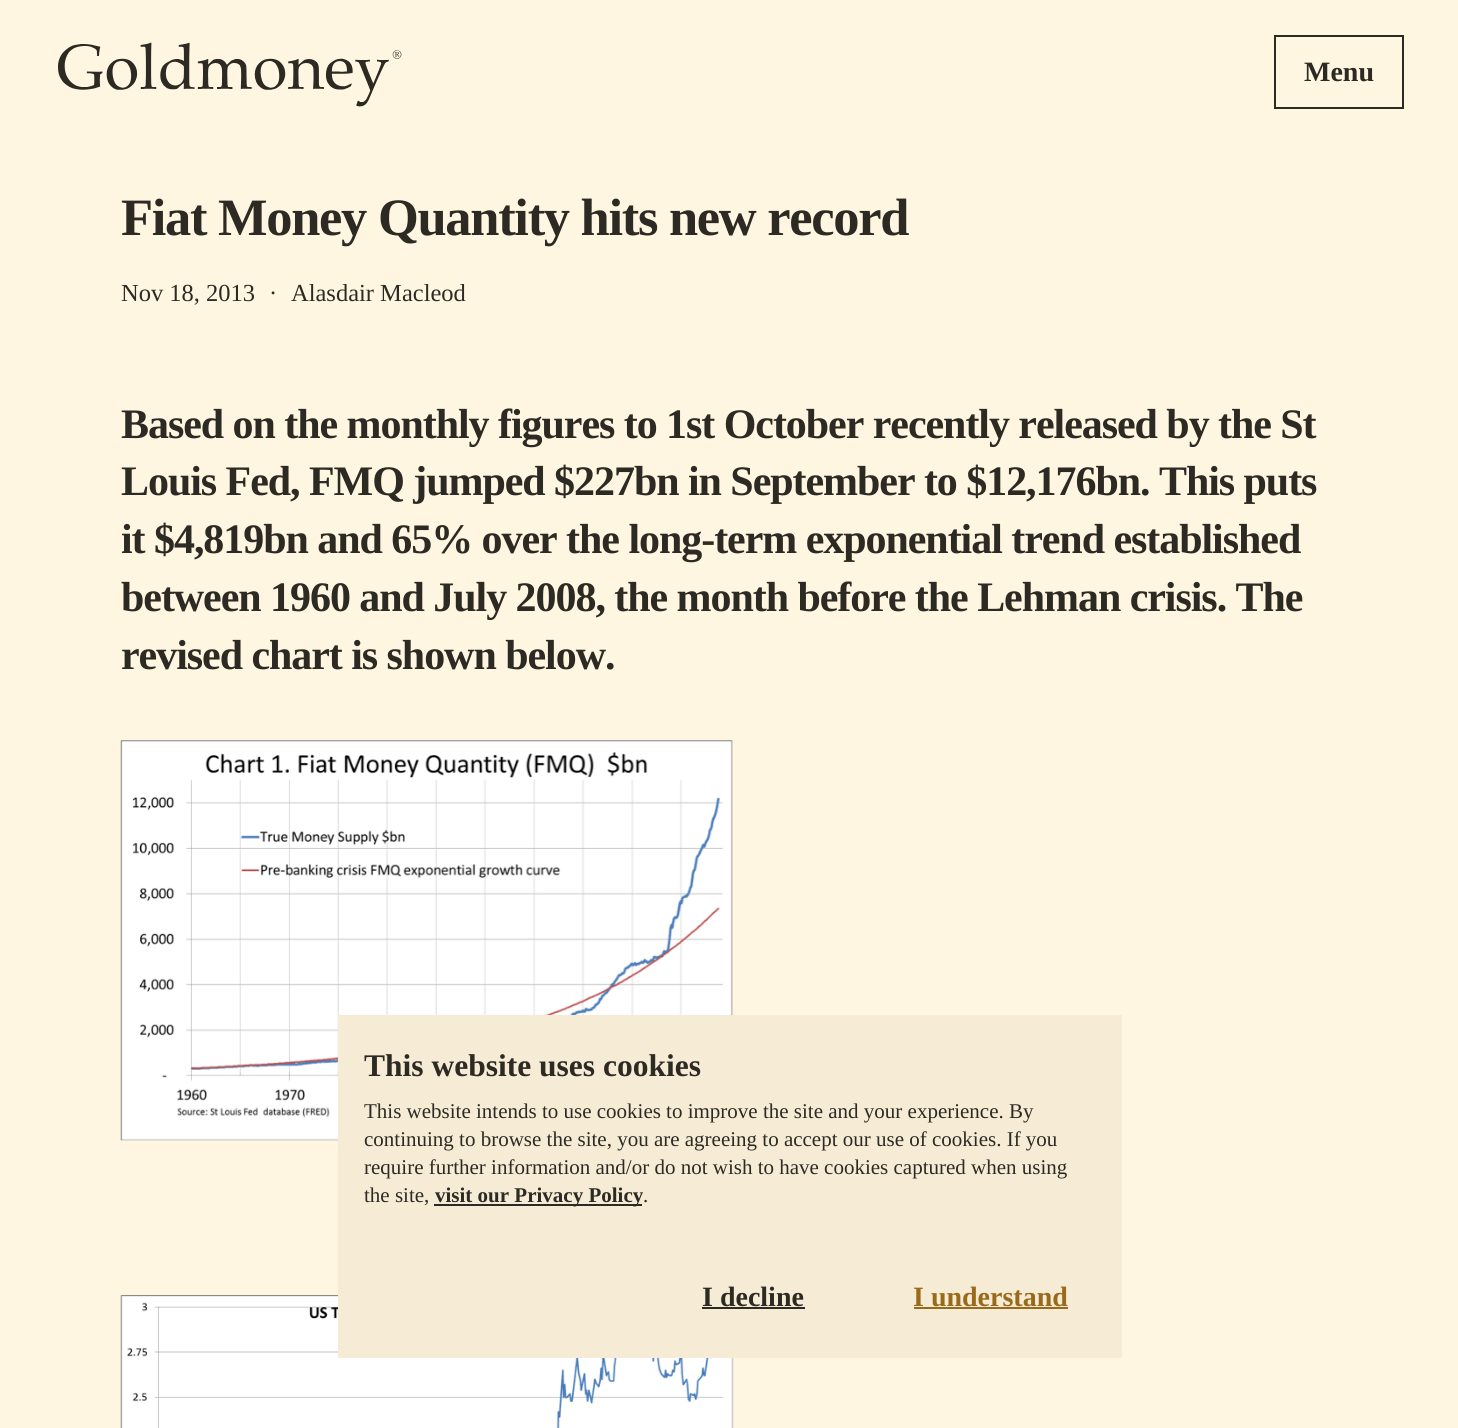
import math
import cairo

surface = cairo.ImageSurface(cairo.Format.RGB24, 1458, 1428)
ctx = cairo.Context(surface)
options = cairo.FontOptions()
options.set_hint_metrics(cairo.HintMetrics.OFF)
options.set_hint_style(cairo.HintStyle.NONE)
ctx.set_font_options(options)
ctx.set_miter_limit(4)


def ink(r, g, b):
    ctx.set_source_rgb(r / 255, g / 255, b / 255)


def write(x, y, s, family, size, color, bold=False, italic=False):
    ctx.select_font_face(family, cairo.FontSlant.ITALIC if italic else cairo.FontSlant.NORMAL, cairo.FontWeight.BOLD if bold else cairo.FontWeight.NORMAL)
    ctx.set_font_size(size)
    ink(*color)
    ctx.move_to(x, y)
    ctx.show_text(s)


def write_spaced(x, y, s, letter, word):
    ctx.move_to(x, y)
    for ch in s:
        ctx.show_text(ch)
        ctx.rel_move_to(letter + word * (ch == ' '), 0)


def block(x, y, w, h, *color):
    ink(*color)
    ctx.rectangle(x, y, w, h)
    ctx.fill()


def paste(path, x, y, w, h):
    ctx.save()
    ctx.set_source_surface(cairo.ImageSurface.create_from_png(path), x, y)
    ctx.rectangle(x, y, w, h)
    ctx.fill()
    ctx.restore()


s1 = dict(family="Liberation Serif", size=28, color=(45, 42, 35), bold=True)
s2 = dict(family="Liberation Serif", size=24.5, color=(45, 42, 35))
s3 = dict(family="Liberation Serif", size=31.5, color=(45, 42, 35), bold=True)
s4 = dict(family="Liberation Serif", size=21, color=(45, 42, 35))
s5 = dict(family="Liberation Serif", size=21, color=(45, 42, 35), bold=True)
s6 = dict(family="Liberation Serif", size=28, color=(152, 106, 25), bold=True)

ink(255, 246, 226)
ctx.paint()
paste("pic1.png", 58, 42, 344, 65)
ctx.rectangle(1275, 36, 128, 72)
ink(45, 42, 35)
ctx.stroke()
write(1304, 81, "Menu", **s1)
ctx.set_font_size(52.5)
write_spaced(121, 235, "Fiat Money Quantity hits new record", -1.3, 0)
write(121, 301, "Nov 18, 2013", **s2)
write(269, 301, "·", **s2)
write(291, 301, "Alasdair Macleod", **s2)
ctx.select_font_face("Liberation Serif", cairo.FontSlant.NORMAL, cairo.FontWeight.BOLD)
ctx.set_font_size(42)
write_spaced(121, 438, "Based on the monthly figures to 1st October recently released by the St", -1.05, 0)
write_spaced(121, 495, "Louis Fed, FMQ jumped $227bn in September to $12,176bn. This puts", -1.05, 0)
write_spaced(121, 553, "it $4,819bn and 65% over the long-term exponential trend established", -1.05, 0)
write_spaced(121, 611, "between 1960 and July 2008, the month before the Lehman crisis. The", -1.05, 0)
write_spaced(121, 669, "revised chart is shown below.", -1.05, 0)
paste("pic2.png", 120, 740, 613, 401)
paste("pic3.png", 120, 1295, 614, 133)
block(338, 1015, 784, 343, 246, 236, 214)
write(364, 1076, "This website uses cookies", **s3)
write(364, 1118, "This website intends to use cookies to improve the site and your experience. By", **s4)
write(364, 1146, "continuing to browse the site, you are agreeing to accept our use of cookies. If you", **s4)
write(364, 1174, "require further information and/or do not wish to have cookies captured when using", **s4)
write(364, 1202, "the site,", **s4)
block(434, 1204, 208, 2, 45, 42, 35)
write(435, 1202, "visit our Privacy Policy", **s5)
write(643, 1202, ".", **s4)
write(702, 1306, "I decline", **s1)
block(702, 1307, 103, 2, 45, 42, 35)
write(913, 1306, "I understand", **s6)
block(914, 1307, 154, 2, 152, 106, 25)
surface.write_to_png("screenshot.png")
